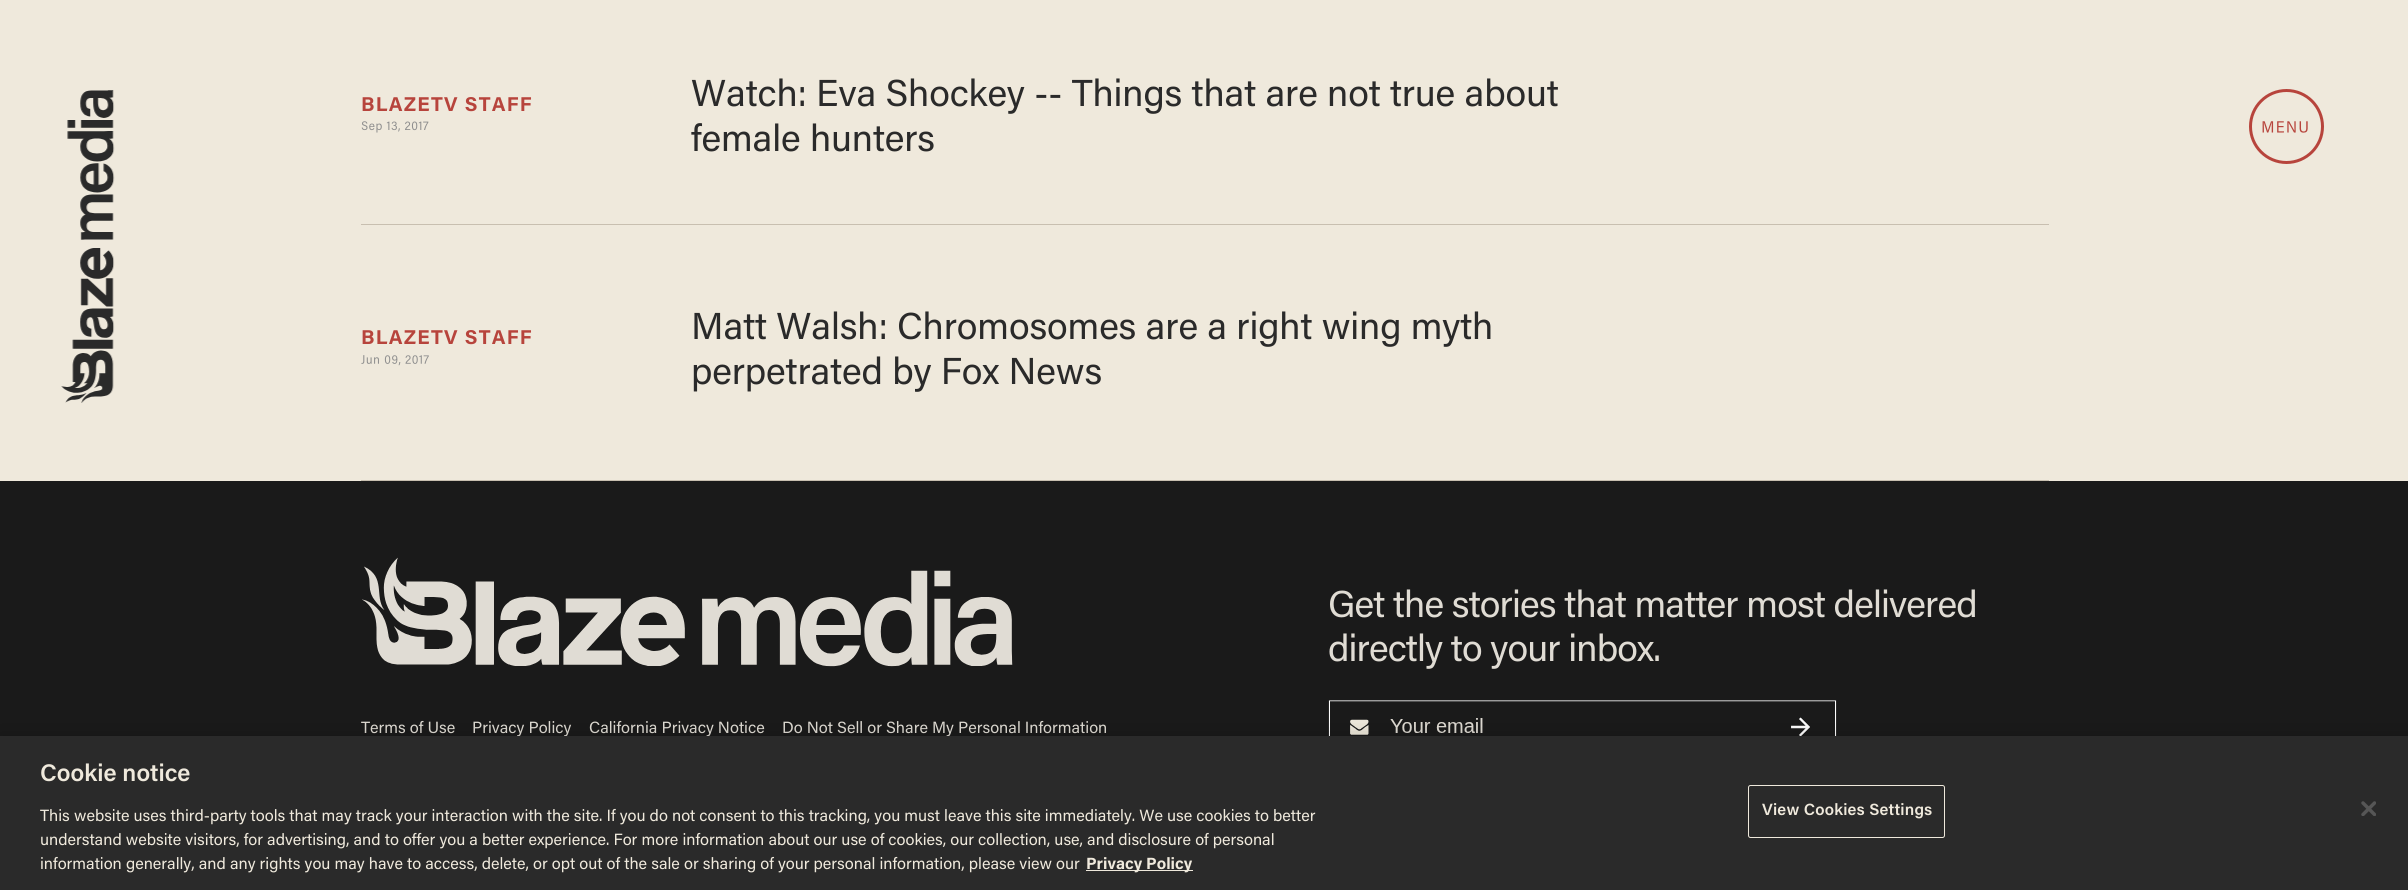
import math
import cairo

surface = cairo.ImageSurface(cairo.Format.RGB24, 2408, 890)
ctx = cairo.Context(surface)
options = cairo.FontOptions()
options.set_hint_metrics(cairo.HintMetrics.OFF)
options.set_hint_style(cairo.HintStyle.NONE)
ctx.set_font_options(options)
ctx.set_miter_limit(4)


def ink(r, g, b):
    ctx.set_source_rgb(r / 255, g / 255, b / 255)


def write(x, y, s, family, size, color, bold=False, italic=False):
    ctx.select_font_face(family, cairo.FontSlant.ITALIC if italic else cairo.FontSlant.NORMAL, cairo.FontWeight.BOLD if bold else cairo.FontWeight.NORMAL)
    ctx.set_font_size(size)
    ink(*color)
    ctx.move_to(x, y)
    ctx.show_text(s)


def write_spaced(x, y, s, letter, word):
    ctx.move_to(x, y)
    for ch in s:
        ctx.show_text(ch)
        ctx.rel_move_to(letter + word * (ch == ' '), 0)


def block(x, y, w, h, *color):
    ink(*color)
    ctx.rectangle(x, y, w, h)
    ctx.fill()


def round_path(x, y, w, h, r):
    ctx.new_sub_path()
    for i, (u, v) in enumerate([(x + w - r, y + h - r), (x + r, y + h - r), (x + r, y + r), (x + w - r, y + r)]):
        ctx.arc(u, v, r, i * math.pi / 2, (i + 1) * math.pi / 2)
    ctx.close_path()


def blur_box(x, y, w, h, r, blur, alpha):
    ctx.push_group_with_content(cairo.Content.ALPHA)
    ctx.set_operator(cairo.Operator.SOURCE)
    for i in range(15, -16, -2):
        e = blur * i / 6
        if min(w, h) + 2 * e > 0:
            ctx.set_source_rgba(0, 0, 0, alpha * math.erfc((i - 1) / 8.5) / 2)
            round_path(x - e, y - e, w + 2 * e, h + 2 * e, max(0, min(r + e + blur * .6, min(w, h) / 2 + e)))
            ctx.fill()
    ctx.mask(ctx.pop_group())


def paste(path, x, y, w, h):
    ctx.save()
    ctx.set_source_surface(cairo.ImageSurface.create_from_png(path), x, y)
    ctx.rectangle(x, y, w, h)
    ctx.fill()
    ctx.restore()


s1 = dict(family="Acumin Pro", size=16.25, color=(224, 220, 212))
s2 = dict(family="Acumin Pro SemiBold", size=24, color=(239, 233, 220))
s3 = dict(family="Acumin Pro", size=16.25, color=(239, 233, 220))
s4 = dict(family="Acumin Pro", size=16.25, color=(239, 233, 220), bold=True)

ink(239, 233, 220)
ctx.paint()
paste("pic1.png", 61, 90, 54, 313)
block(361, 224, 1688, 1, 200, 191, 176)
ctx.select_font_face("Acumin Pro", cairo.FontSlant.NORMAL, cairo.FontWeight.BOLD)
ctx.set_font_size(20)
ink(183, 68, 60)
write_spaced(361, 111, "BLAZETV STAFF", 1.25, 0)
paste("pic2.png", 361, 121, 68, 12)
ctx.select_font_face("Acumin Pro")
ctx.set_font_size(37.5)
ink(42, 42, 42)
write_spaced(691, 106, "Watch: Eva Shockey -- Things that are not true about", -0.12, 0)
write_spaced(691, 151, "female hunters", -0.12, 0)
block(361, 480, 1688, 1, 200, 191, 176)
ctx.select_font_face("Acumin Pro", cairo.FontSlant.NORMAL, cairo.FontWeight.BOLD)
ctx.set_font_size(20)
ink(183, 68, 60)
write_spaced(361, 344, "BLAZETV STAFF", 1.25, 0)
paste("pic3.png", 361, 355, 68, 11)
ctx.select_font_face("Acumin Pro")
ctx.set_font_size(37.5)
ink(42, 42, 42)
write_spaced(691, 339, "Matt Walsh: Chromosomes are a right wing myth", -0.12, 0)
write_spaced(691, 384, "perpetrated by Fox News", -0.12, 0)
ctx.new_path()
ctx.arc(2286.5, 126.5, 36, 0, 2 * math.pi)
ink(183, 68, 60)
ctx.set_line_width(3)
ctx.stroke()
paste("pic4.png", 2262, 121, 46, 12)
block(0, 481, 2408, 255, 26, 26, 26)
ink(224, 220, 212)
write_spaced(1328, 617, "Get the stories that matter most delivered", -0.85, 0)
write_spaced(1328, 661, "directly to your inbox.", -0.85, 0)
paste("pic5.png", 1328, 700, 509, 36)
paste("pic6.png", 362, 557, 651, 110)
write(361, 733, "Terms of Use", **s1)
write(472, 733, "Privacy Policy", **s1)
write(589, 733, "California Privacy Notice", **s1)
write(782, 733, "Do Not Sell or Share My Personal Information", **s1)
ink(0, 0, 0)
blur_box(0, 736, 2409, 154, 0, 11, 0.2)
block(0, 736, 2408, 154, 42, 42, 42)
write(40, 781, "Cookie notice", **s2)
write(40, 821, "This website uses third-party tools that may track your interaction with the site. If you do not consent to this tracking, you must leave this site immediately. We use cookies to better", **s3)
write(40, 845, "understand website visitors, for advertising, and to offer you a better experience. For more information about our use of cookies, our collection, use, and disclosure of personal", **s3)
write(40, 869, "information generally, and any rights you may have to access, delete, or opt out of the sale or sharing of your personal information, please view our", **s3)
block(1086, 870, 107, 1, 239, 233, 220)
write(1086, 869, "Privacy Policy", **s4)
round_path(1748.5, 785.5, 196, 52, 2)
ctx.set_line_width(1)
ctx.stroke()
ctx.select_font_face("Acumin Pro SemiBold")
write_spaced(1762, 815, "View Cookies Settings", 0.2, 0)
paste("pic7.png", 2361, 801, 15, 15)
surface.write_to_png("screenshot.png")
